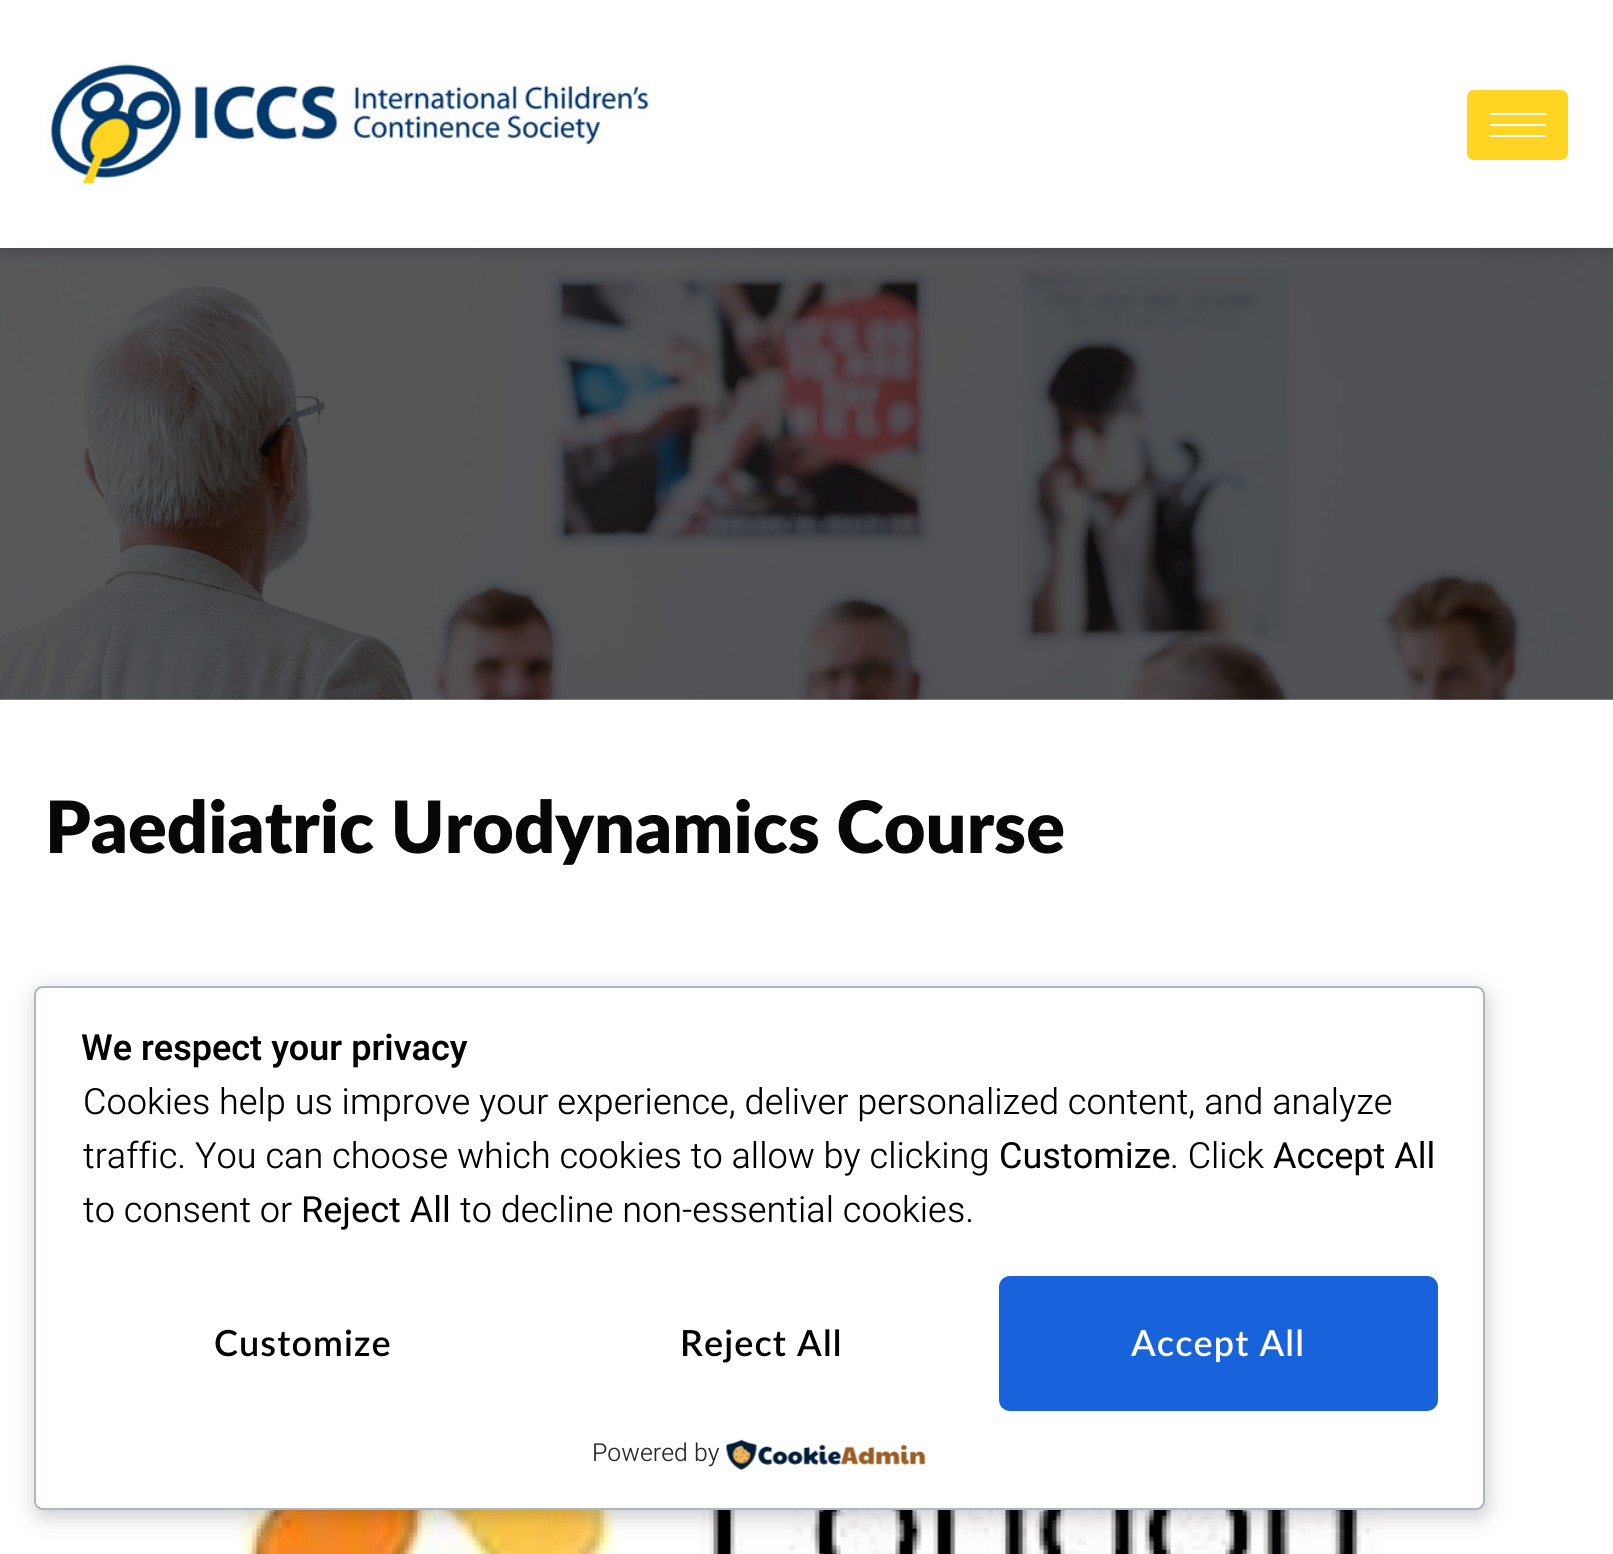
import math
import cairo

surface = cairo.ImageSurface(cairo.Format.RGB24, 1613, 1554)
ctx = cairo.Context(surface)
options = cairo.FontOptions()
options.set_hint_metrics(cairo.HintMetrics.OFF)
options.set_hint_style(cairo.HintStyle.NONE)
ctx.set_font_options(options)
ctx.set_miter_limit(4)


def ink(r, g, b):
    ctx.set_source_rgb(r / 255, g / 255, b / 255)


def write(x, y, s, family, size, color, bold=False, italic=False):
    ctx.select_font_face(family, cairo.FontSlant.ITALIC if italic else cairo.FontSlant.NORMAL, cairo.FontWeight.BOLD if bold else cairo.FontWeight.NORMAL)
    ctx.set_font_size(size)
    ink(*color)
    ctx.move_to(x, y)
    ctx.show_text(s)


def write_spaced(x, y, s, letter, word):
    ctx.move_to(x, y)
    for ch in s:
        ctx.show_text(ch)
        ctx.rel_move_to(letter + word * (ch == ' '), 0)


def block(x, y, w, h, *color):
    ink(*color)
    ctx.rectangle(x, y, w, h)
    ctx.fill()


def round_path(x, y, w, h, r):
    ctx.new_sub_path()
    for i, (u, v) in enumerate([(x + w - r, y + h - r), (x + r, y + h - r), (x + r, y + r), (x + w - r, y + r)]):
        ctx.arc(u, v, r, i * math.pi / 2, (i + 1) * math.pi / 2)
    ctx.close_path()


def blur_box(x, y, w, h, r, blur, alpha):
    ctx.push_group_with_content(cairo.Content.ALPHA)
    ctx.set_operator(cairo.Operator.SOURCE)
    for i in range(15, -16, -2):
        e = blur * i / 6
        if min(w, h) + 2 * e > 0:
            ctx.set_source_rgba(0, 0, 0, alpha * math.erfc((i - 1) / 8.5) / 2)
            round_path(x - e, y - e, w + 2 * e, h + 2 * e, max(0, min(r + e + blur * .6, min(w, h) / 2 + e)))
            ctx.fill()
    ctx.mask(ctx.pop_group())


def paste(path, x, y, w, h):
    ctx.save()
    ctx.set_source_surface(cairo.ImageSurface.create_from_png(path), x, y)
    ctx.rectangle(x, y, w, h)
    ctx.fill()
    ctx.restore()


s1 = dict(family="Lato ExtraBold", size=72, color=(7, 7, 7))
s2 = dict(family="Heebo SemiBold", size=36, color=(0, 0, 0))
s3 = dict(family="Heebo Light", size=36, color=(0, 0, 0))
s4 = dict(family="Heebo", size=36, color=(0, 0, 0))
s5 = dict(family="Heebo Light", size=24.75, color=(41, 41, 41))

ink(255, 255, 255)
ctx.paint()
paste("pic2.png", 0, 247, 1613, 453)
ctx.save()
ctx.set_fill_rule(cairo.FillRule.EVEN_ODD)
ctx.new_path()
ctx.move_to(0, 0)
ctx.line_to(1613, 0)
ctx.line_to(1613, 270)
ctx.line_to(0, 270)
ctx.close_path()
ctx.move_to(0, 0)
ctx.line_to(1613, 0)
ctx.line_to(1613, 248)
ctx.line_to(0, 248)
ctx.close_path()
ctx.clip()
ink(0, 0, 0)
blur_box(0, 5, 1613, 247, 0, 5.5, 0.15)
ctx.restore()
paste("pic1.png", 45, 59, 605, 132)
ink(255, 212, 35)
round_path(1467, 90, 101, 70, 7)
ctx.fill()
block(1490, 113, 56, 2, 255, 255, 255)
block(1490, 124, 56, 2, 255, 255, 255)
block(1490, 135, 56, 2, 255, 255, 255)
write(45, 853, "Paediatric Urodynamics Course", **s1)
paste("pic3.png", 151, 1510, 1231, 44)
ink(0, 0, 0)
blur_box(36, 992, 1451, 525, 9, 11, 0.2)
ink(255, 255, 255)
round_path(35, 987, 1449, 522, 8)
ctx.fill_preserve()
ink(171, 184, 195)
ctx.stroke()
write(81, 1060, "We respect your privacy", **s2)
write(83, 1114, "Cookies help us improve your experience, deliver personalized content, and analyze", **s3)
write(83, 1168, "traffic. You can choose which cookies to allow by clicking", **s3)
write(999, 1168, "Customize", **s4)
write(1170, 1168, ". Click", **s3)
write(1273, 1168, "Accept All", **s4)
write(83, 1222, "to consent or", **s3)
write(301, 1222, "Reject All", **s4)
write(460, 1222, "to decline non-essential cookies.", **s3)
ctx.select_font_face("Lato SemiBold")
write_spaced(214, 1356, "Customize", 1.1, 0)
write_spaced(680, 1356, "Reject All", 1.1, 0)
ink(24, 99, 220)
round_path(999, 1276, 439, 135, 11)
ctx.fill()
ink(255, 255, 255)
write_spaced(1131, 1356, "Accept All", 1.1, 0)
write(592, 1461, "Powered by", **s5)
paste("pic4.png", 726, 1439, 200, 31)
surface.write_to_png("screenshot.png")
